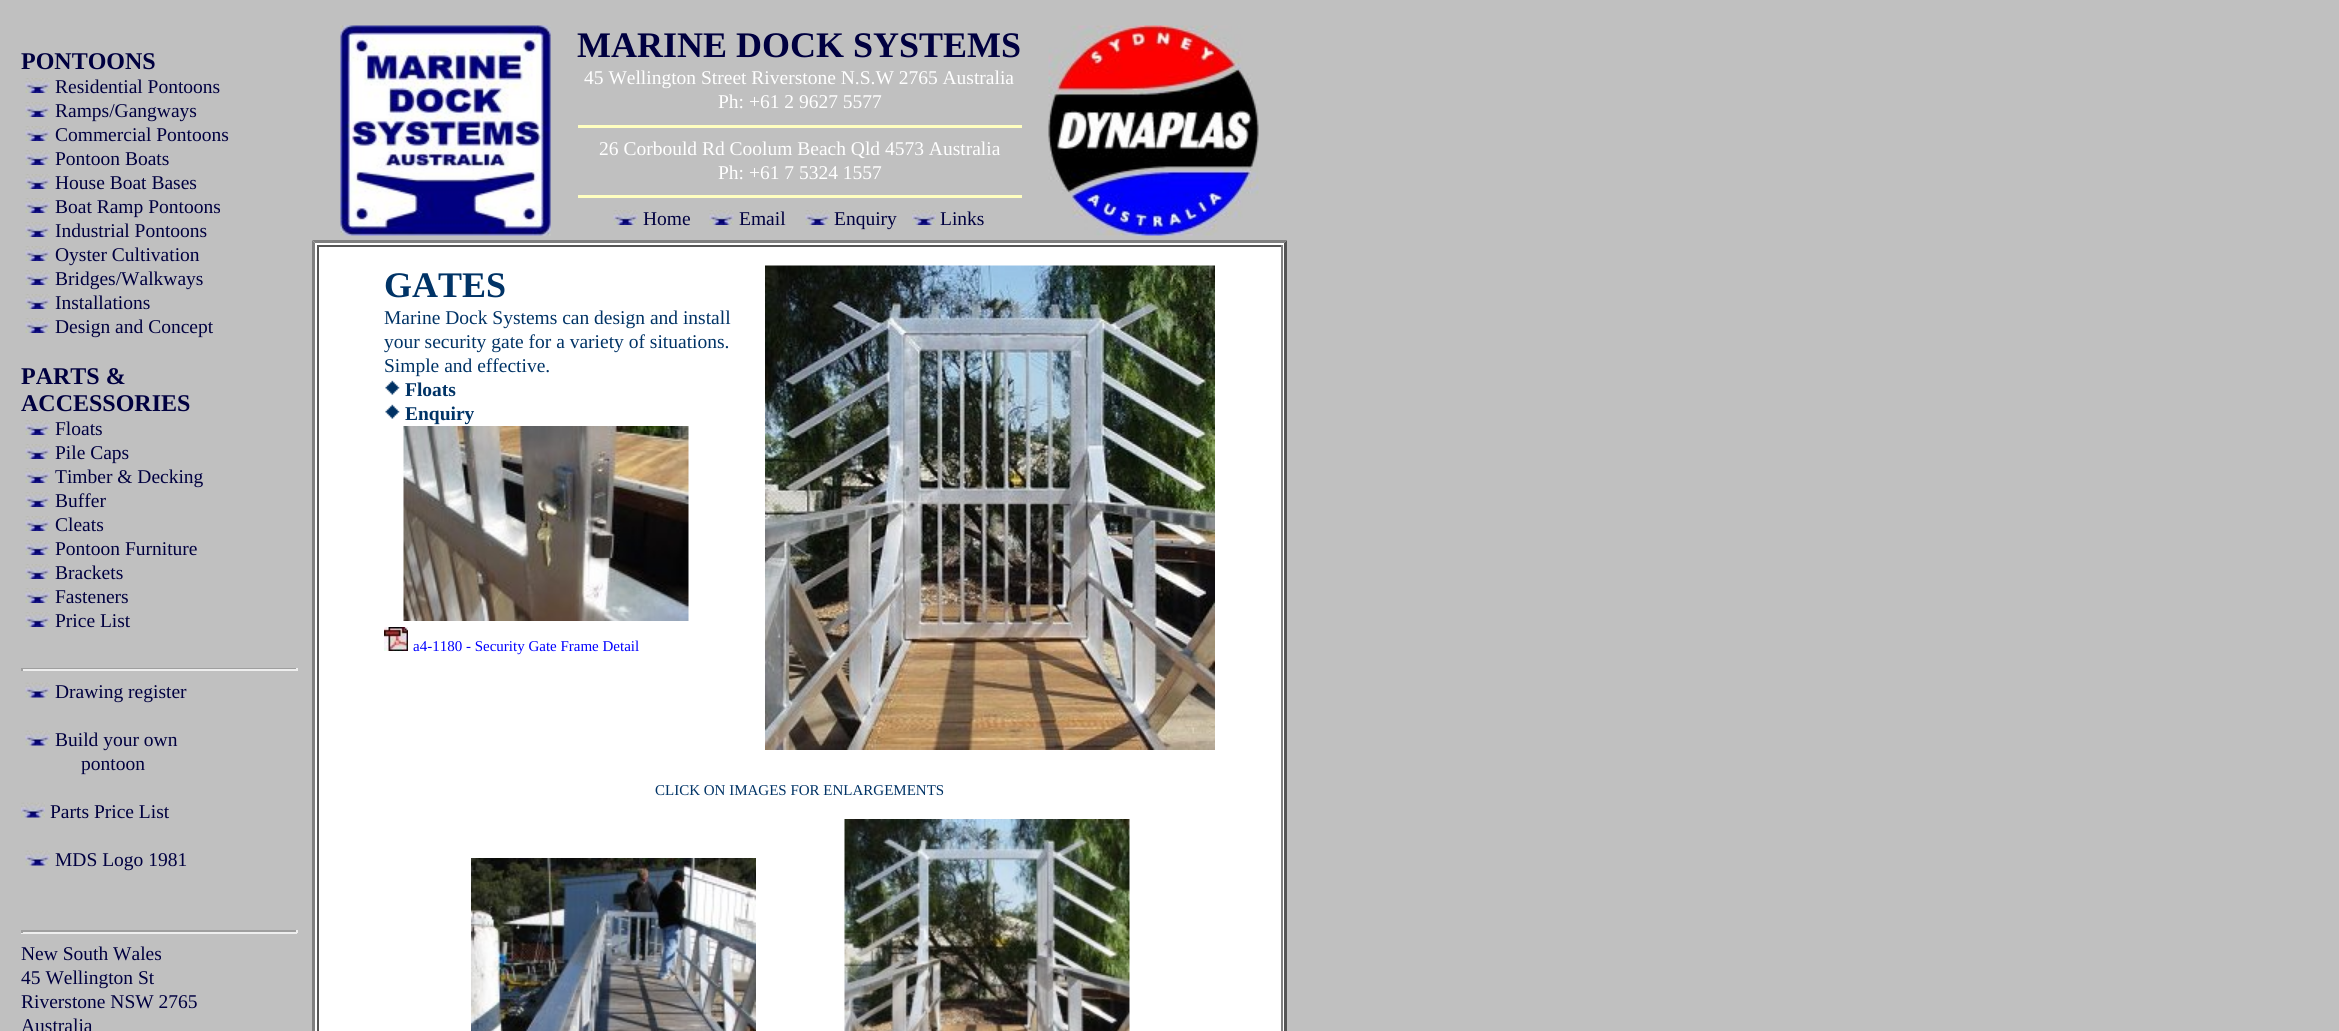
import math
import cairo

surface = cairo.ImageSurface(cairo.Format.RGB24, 2339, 1031)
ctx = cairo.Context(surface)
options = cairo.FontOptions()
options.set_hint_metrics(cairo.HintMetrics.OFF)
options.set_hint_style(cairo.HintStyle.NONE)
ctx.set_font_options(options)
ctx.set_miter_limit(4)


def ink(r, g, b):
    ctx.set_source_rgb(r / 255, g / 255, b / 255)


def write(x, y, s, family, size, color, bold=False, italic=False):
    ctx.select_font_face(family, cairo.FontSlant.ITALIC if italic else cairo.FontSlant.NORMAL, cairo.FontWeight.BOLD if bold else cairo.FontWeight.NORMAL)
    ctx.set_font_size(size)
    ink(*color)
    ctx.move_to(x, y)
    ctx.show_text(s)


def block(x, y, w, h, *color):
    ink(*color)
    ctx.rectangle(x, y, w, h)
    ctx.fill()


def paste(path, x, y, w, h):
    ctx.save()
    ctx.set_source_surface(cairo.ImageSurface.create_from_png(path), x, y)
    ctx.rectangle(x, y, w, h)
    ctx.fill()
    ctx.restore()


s1 = dict(family="Liberation Serif", size=24, color=(0, 0, 64), bold=True)
s2 = dict(family="Liberation Serif", size=19.5, color=(0, 0, 64))
s3 = dict(family="Liberation Serif", size=36, color=(0, 0, 64), bold=True)
s4 = dict(family="Liberation Serif", size=19.5, color=(255, 255, 255))
s5 = dict(family="Liberation Serif", size=36, color=(0, 51, 102), bold=True)
s6 = dict(family="Liberation Serif", size=19.5, color=(0, 51, 102))
s7 = dict(family="Liberation Serif", size=19.5, color=(0, 51, 102), bold=True)
s8 = dict(family="Liberation Serif", size=15, color=(0, 0, 255))
s9 = dict(family="Liberation Serif", size=15, color=(0, 51, 102))

ink(192, 192, 192)
ctx.paint()
write(21, 69, "PONTOONS", **s1)
paste("pic1.png", 25, 78, 25, 15)
write(55, 93, "Residential Pontoons", **s2)
paste("pic1.png", 25, 102, 25, 15)
write(55, 117, "Ramps/Gangways", **s2)
paste("pic1.png", 25, 126, 25, 15)
write(55, 141, "Commercial Pontoons", **s2)
paste("pic1.png", 25, 150, 25, 15)
write(55, 165, "Pontoon Boats", **s2)
paste("pic1.png", 25, 174, 25, 15)
write(55, 189, "House Boat Bases", **s2)
paste("pic1.png", 25, 198, 25, 15)
write(55, 213, "Boat Ramp Pontoons", **s2)
paste("pic1.png", 25, 222, 25, 15)
write(55, 237, "Industrial Pontoons", **s2)
paste("pic1.png", 25, 246, 25, 15)
write(55, 261, "Oyster Cultivation", **s2)
paste("pic1.png", 25, 270, 25, 15)
write(55, 285, "Bridges/Walkways", **s2)
paste("pic1.png", 25, 294, 25, 15)
write(55, 309, "Installations", **s2)
paste("pic1.png", 25, 318, 25, 15)
write(55, 333, "Design and Concept", **s2)
write(21, 384, "PARTS &", **s1)
write(21, 411, "ACCESSORIES", **s1)
paste("pic1.png", 25, 420, 25, 15)
write(55, 435, "Floats", **s2)
paste("pic1.png", 25, 444, 25, 15)
write(55, 459, "Pile Caps", **s2)
paste("pic1.png", 25, 468, 25, 15)
write(55, 483, "Timber & Decking", **s2)
paste("pic1.png", 25, 492, 25, 15)
write(55, 507, "Buffer", **s2)
paste("pic1.png", 25, 516, 25, 15)
write(55, 531, "Cleats", **s2)
paste("pic1.png", 25, 540, 25, 15)
write(55, 555, "Pontoon Furniture", **s2)
paste("pic1.png", 25, 564, 25, 15)
write(55, 579, "Brackets", **s2)
paste("pic1.png", 25, 588, 25, 15)
write(55, 603, "Fasteners", **s2)
paste("pic1.png", 25, 612, 25, 15)
write(55, 627, "Price List", **s2)
block(21, 668, 276, 1, 159, 159, 159)
block(296, 668, 2, 3, 238, 238, 238)
block(21, 669, 276, 2, 238, 238, 238)
block(21, 668, 2, 3, 159, 159, 159)
paste("pic2.png", 25, 682, 25, 16)
write(55, 698, "Drawing register", **s2)
paste("pic2.png", 25, 730, 25, 16)
write(55, 746, "Build your own", **s2)
write(81, 770, "pontoon", **s2)
paste("pic3.png", 21, 802, 24, 16)
write(50, 818, "Parts Price List", **s2)
paste("pic2.png", 25, 850, 25, 16)
write(55, 866, "MDS Logo 1981", **s2)
block(21, 930, 276, 2, 159, 159, 159)
block(296, 930, 2, 3, 238, 238, 238)
block(21, 932, 276, 2, 238, 238, 238)
block(21, 930, 2, 3, 159, 159, 159)
write(21, 960, "New South Wales", **s2)
write(21, 984, "45 Wellington St", **s2)
write(21, 1008, "Riverstone NSW 2765", **s2)
write(21, 1032, "Australia", **s2)
paste("pic4.png", 340, 25, 211, 211)
write(577, 57, "MARINE DOCK SYSTEMS", **s3)
write(584, 84, "45 Wellington Street Riverstone N.S.W 2765 Australia", **s4)
write(718, 108, "Ph: +61 2 9627 5577", **s4)
block(578, 125, 444, 3, 255, 255, 192)
write(599, 155, "26 Corbould Rd Coolum Beach Qld 4573 Australia", **s4)
write(718, 179, "Ph: +61 7 5324 1557", **s4)
block(578, 195, 444, 3, 255, 255, 192)
paste("pic5.png", 613, 210, 25, 15)
write(643, 225, "Home", **s2)
paste("pic5.png", 709, 210, 25, 15)
write(739, 225, "Email", **s2)
paste("pic1.png", 805, 210, 25, 15)
write(834, 225, "Enquiry", **s2)
paste("pic6.png", 912, 210, 24, 15)
write(940, 225, "Links", **s2)
paste("pic7.png", 1048, 25, 211, 211)
block(312, 240, 975, 791, 255, 255, 255)
ink(128, 128, 128)
ctx.new_path()
ctx.move_to(312, 240)
ctx.line_to(1287, 240)
ctx.line_to(1284, 243)
ctx.line_to(315, 243)
ctx.close_path()
ctx.fill()
ink(85, 85, 85)
ctx.new_path()
ctx.move_to(1287, 240)
ctx.line_to(1287, 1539)
ctx.line_to(1284, 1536)
ctx.line_to(1284, 243)
ctx.close_path()
ctx.fill()
ink(128, 128, 128)
ctx.new_path()
ctx.move_to(312, 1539)
ctx.line_to(312, 240)
ctx.line_to(315, 243)
ctx.line_to(315, 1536)
ctx.close_path()
ctx.fill()
block(317, 245, 966, 2, 85, 85, 85)
block(1281, 245, 2, 786, 128, 128, 128)
block(317, 245, 2, 786, 85, 85, 85)
write(384, 297, "GATES", **s5)
write(384, 324, "Marine Dock Systems can design and install", **s6)
write(384, 348, "your security gate for a variety of situations.", **s6)
write(384, 372, "Simple and effective.", **s6)
paste("pic8.png", 385, 380, 15, 15)
write(405, 396, "Floats", **s7)
paste("pic8.png", 385, 404, 15, 15)
write(405, 420, "Enquiry", **s7)
paste("pic9.png", 403, 426, 286, 195)
paste("pic10.png", 384, 627, 24, 24)
write(413, 651, "a4-1180 - Security Gate Frame Detail", **s8)
paste("pic11.png", 765, 265, 450, 485)
write(655, 795, "CLICK ON IMAGES FOR ENLARGEMENTS", **s9)
paste("pic12.png", 471, 858, 285, 173)
paste("pic13.png", 844, 819, 286, 212)
surface.write_to_png("screenshot.png")
